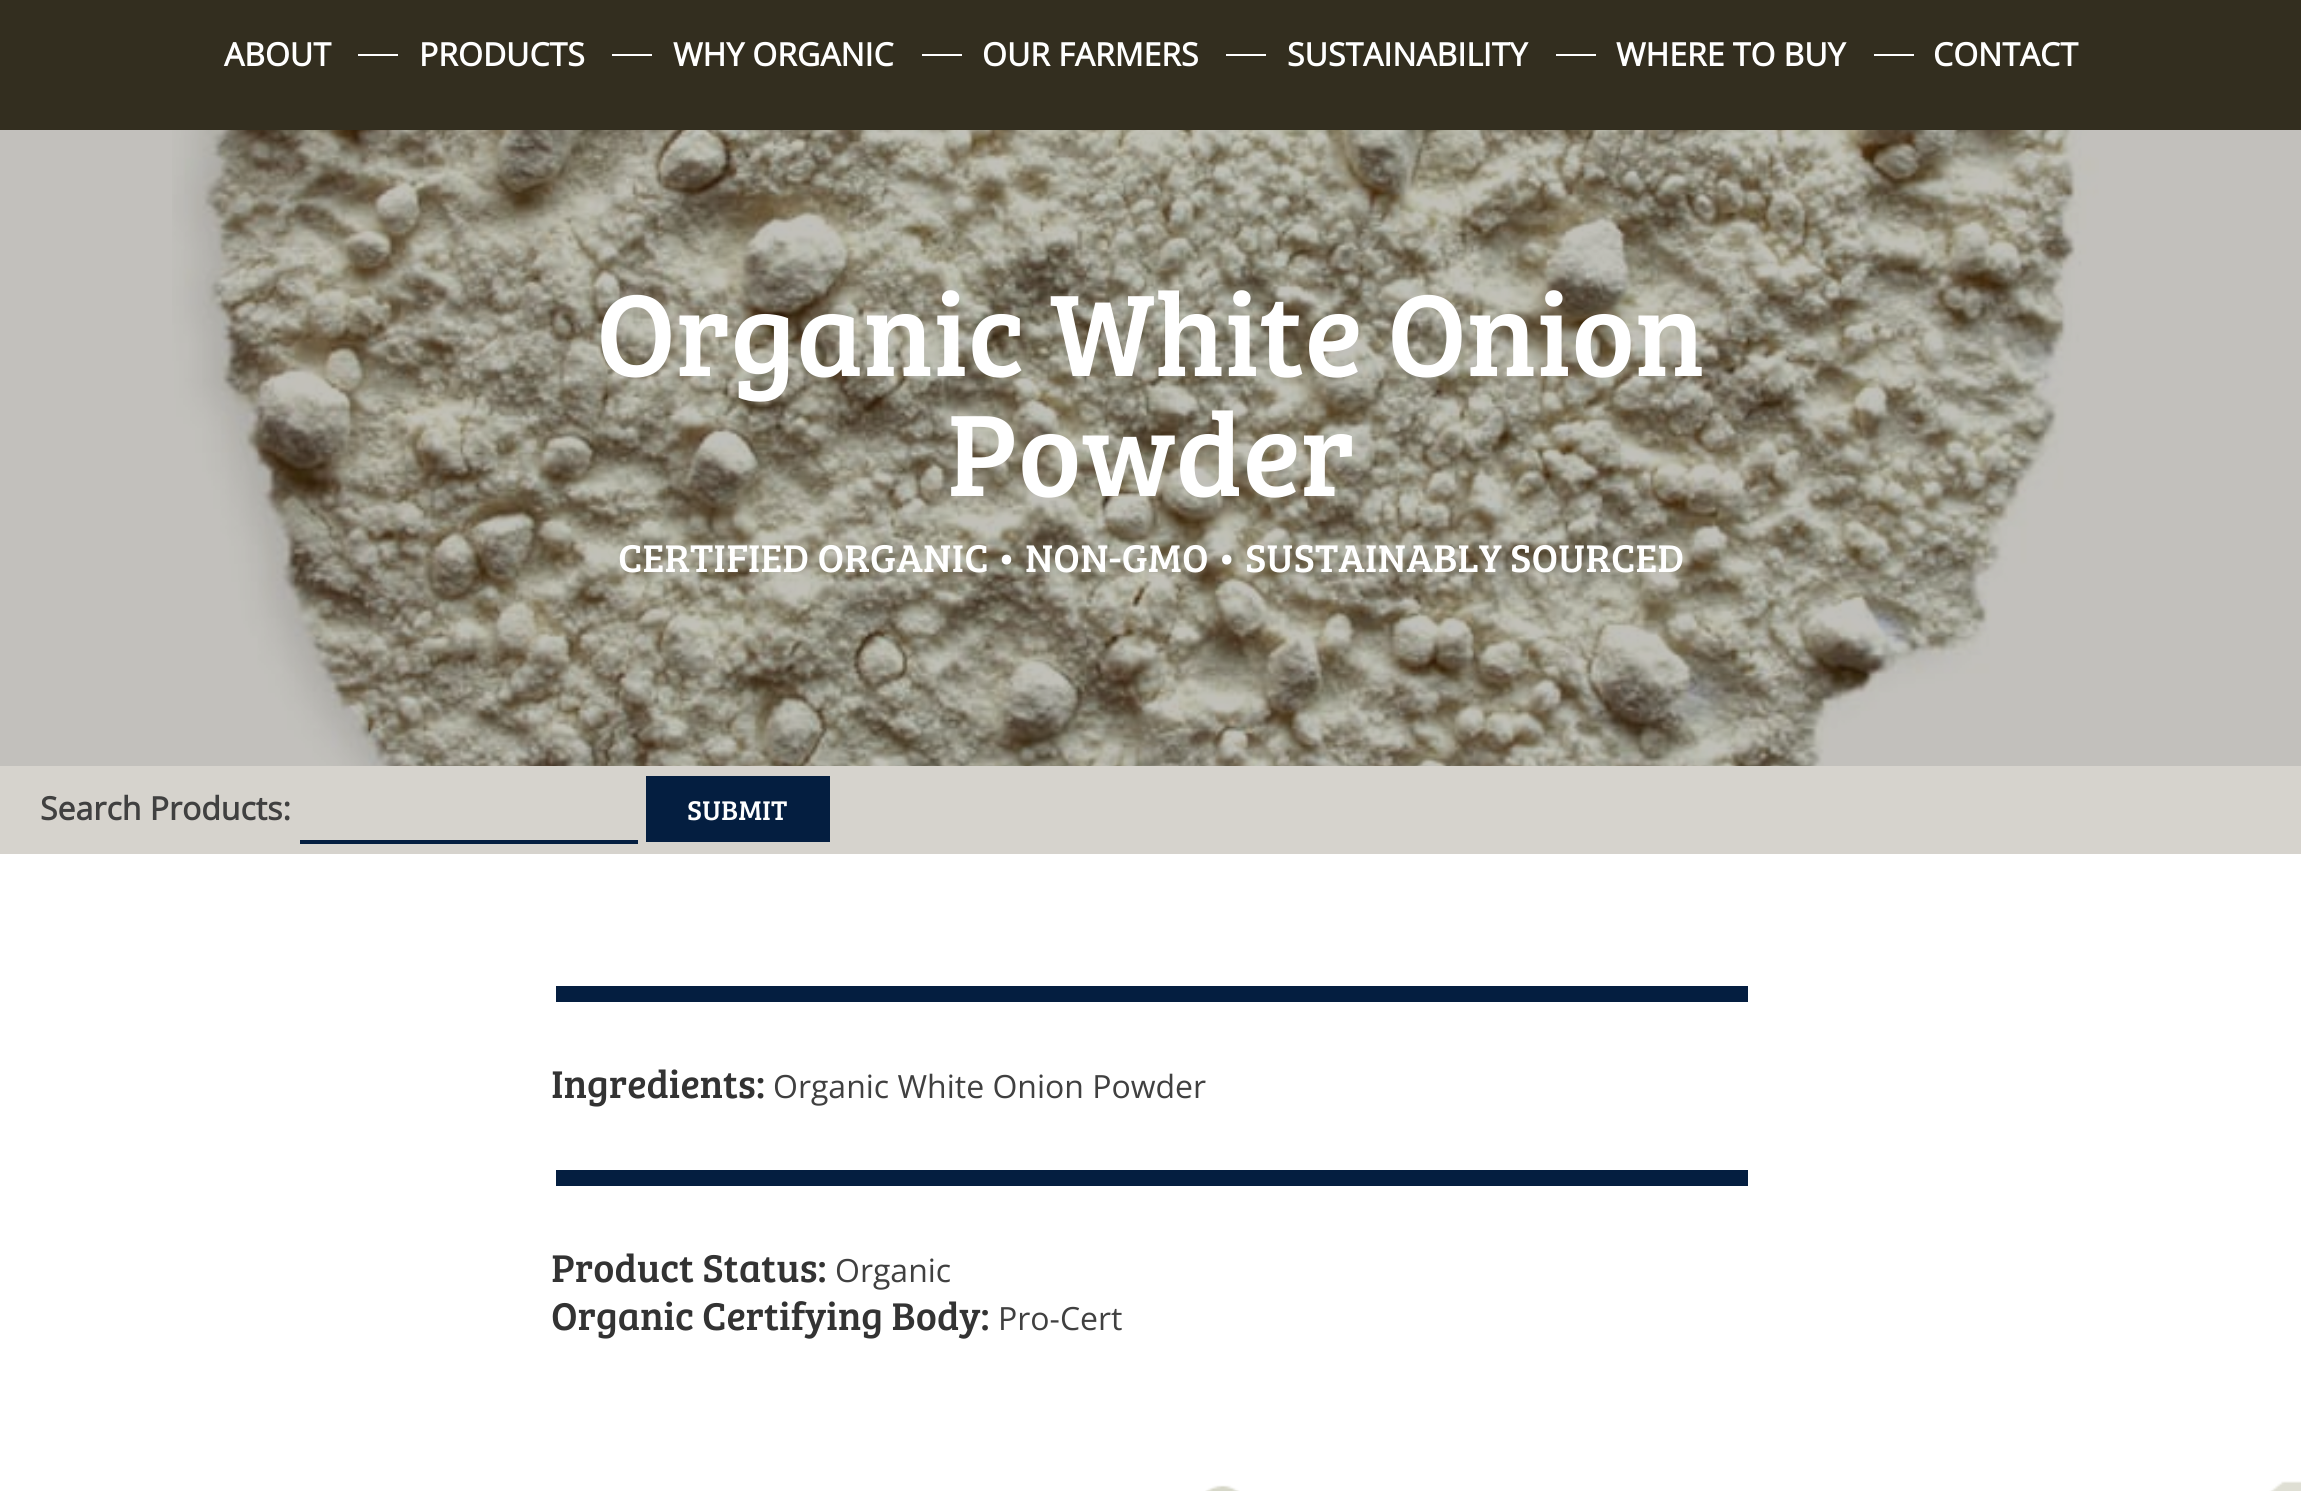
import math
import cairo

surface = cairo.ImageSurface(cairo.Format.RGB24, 2301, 1491)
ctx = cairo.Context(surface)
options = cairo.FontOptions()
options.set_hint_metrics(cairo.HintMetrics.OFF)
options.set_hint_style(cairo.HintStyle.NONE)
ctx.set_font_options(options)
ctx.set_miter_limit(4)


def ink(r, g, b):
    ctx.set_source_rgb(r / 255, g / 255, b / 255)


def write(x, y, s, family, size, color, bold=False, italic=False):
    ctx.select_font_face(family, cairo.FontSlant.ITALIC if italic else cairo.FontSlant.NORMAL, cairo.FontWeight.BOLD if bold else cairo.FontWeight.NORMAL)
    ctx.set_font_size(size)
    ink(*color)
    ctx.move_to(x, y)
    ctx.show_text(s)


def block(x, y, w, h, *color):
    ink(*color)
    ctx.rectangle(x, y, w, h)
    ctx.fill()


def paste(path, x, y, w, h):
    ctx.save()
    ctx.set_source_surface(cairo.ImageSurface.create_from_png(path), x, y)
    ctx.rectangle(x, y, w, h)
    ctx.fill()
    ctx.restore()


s1 = dict(family="Open Sans", size=32, color=(255, 255, 255), bold=True)
s2 = dict(family="Bree Serif", size=120, color=(255, 255, 255))
s3 = dict(family="Bree Serif", size=40, color=(255, 255, 255))
s4 = dict(family="Open Sans", size=32, color=(64, 64, 64), bold=True)
s5 = dict(family="Bree Serif", size=28, color=(255, 255, 255))
s6 = dict(family="Bree Serif", size=40, color=(51, 51, 51))
s7 = dict(family="Open Sans", size=32, color=(64, 64, 64))

ink(255, 255, 255)
ctx.paint()
block(0, 130, 2301, 636, 194, 192, 188)
block(0, 0, 2301, 130, 51, 46, 31)
write(224, 66, "ABOUT", **s1)
block(358, 54, 40, 2, 255, 255, 255)
write(419, 66, "PRODUCTS", **s1)
block(612, 54, 40, 2, 255, 255, 255)
write(673, 66, "WHY ORGANIC", **s1)
block(922, 54, 40, 2, 255, 255, 255)
write(982, 66, "OUR FARMERS", **s1)
block(1226, 54, 40, 2, 255, 255, 255)
write(1287, 66, "SUSTAINABILITY", **s1)
block(1556, 54, 40, 2, 255, 255, 255)
write(1616, 66, "WHERE TO BUY", **s1)
block(1874, 54, 40, 2, 255, 255, 255)
write(1933, 66, "CONTACT", **s1)
paste("pic1.png", 172, 130, 1927, 636)
write(596, 376, "Organic White Onion", **s2)
write(946, 496, "Powder", **s2)
write(618, 572, "CERTIFIED ORGANIC • NON-GMO • SUSTAINABLY SOURCED", **s3)
paste("pic2.png", 1205, 1481, 1096, 10)
block(0, 766, 2301, 88, 214, 211, 205)
write(40, 820, "Search Products:", **s4)
ink(4, 30, 64)
ctx.rectangle(647, 777, 182, 64)
ctx.fill_preserve()
ctx.stroke()
write(687, 820, "SUBMIT", **s5)
block(300, 840, 338, 4, 4, 30, 64)
block(556, 986, 1192, 16, 4, 30, 64)
write(551, 1098, "Ingredients:", **s6)
write(773, 1098, "Organic White Onion Powder", **s7)
block(556, 1170, 1192, 16, 4, 30, 64)
write(551, 1282, "Product Status:", **s6)
write(835, 1282, "Organic", **s7)
write(551, 1330, "Organic Certifying Body:", **s6)
write(998, 1330, "Pro-Cert", **s7)
surface.write_to_png("screenshot.png")
